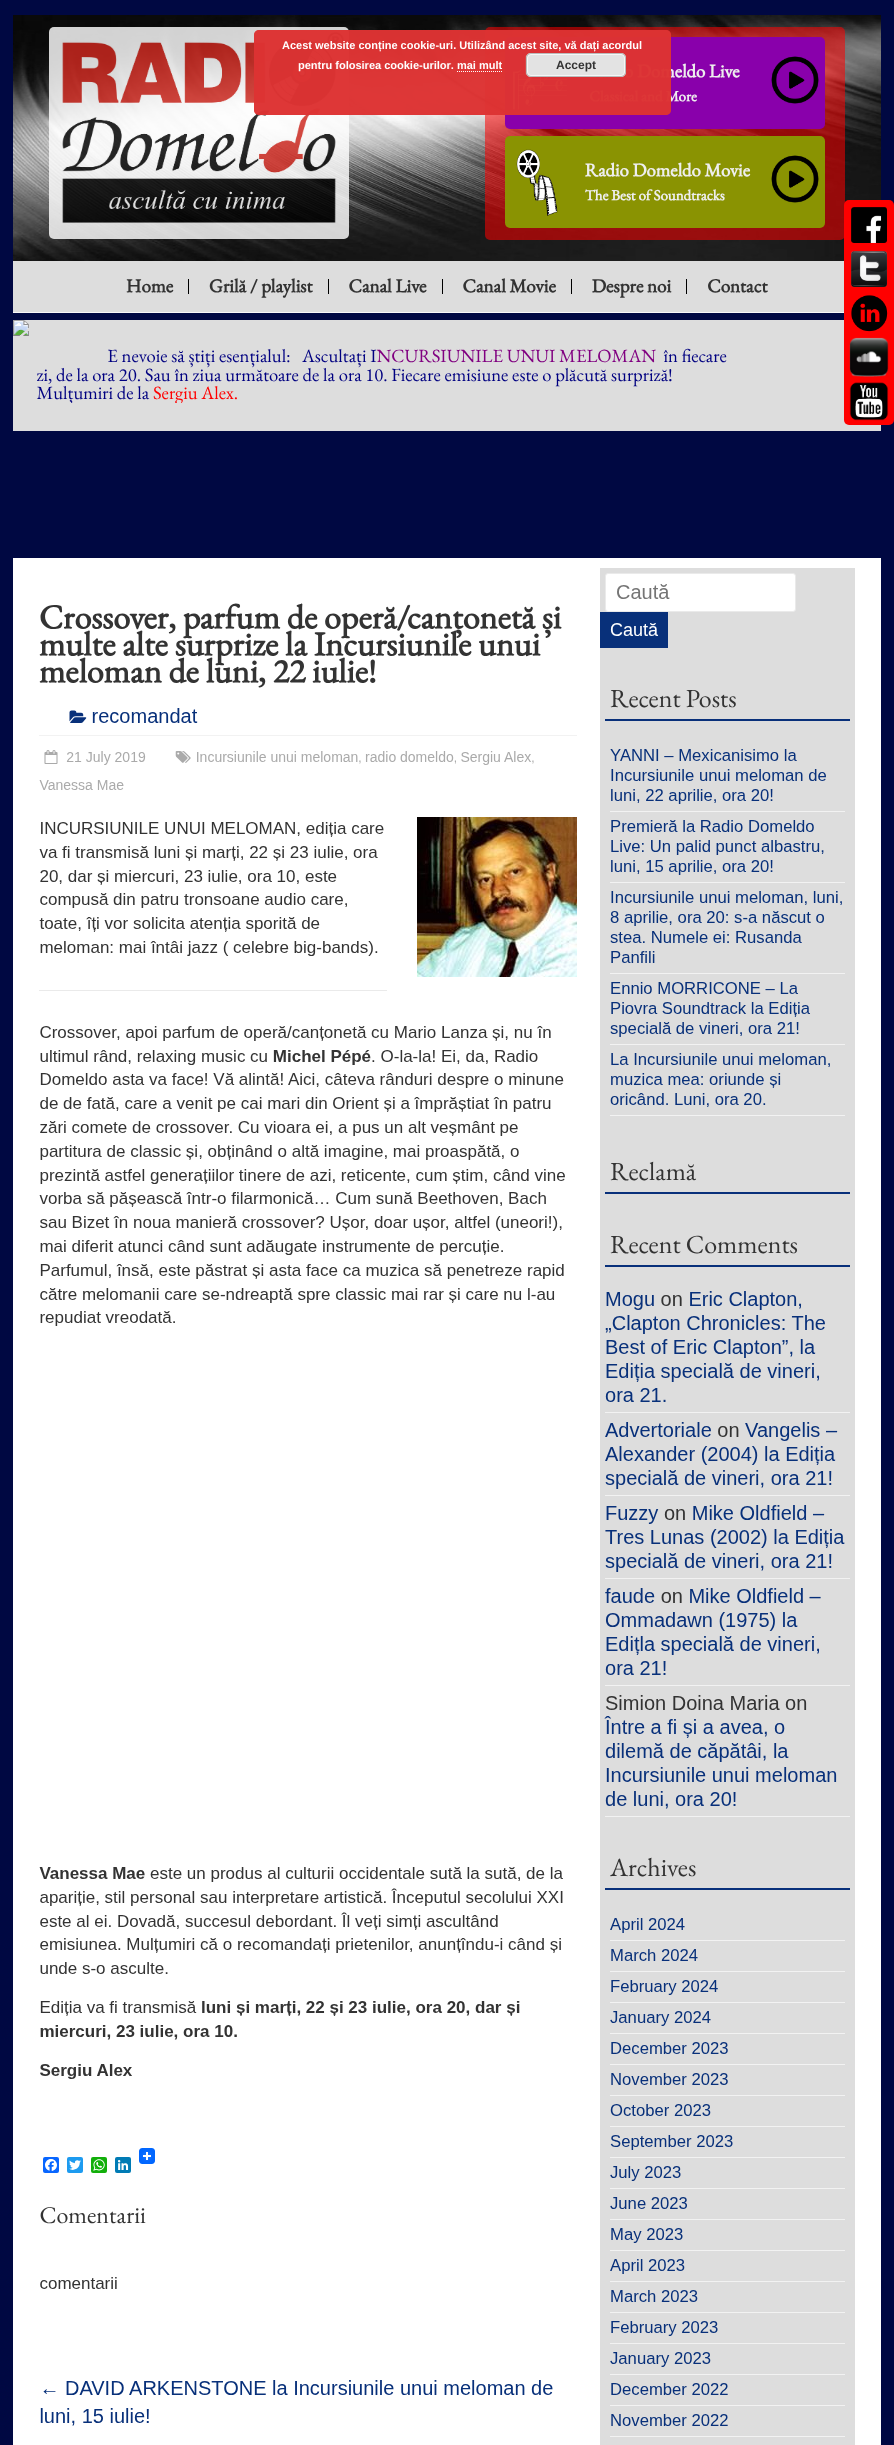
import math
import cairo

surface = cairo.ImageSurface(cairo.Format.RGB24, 894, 2445)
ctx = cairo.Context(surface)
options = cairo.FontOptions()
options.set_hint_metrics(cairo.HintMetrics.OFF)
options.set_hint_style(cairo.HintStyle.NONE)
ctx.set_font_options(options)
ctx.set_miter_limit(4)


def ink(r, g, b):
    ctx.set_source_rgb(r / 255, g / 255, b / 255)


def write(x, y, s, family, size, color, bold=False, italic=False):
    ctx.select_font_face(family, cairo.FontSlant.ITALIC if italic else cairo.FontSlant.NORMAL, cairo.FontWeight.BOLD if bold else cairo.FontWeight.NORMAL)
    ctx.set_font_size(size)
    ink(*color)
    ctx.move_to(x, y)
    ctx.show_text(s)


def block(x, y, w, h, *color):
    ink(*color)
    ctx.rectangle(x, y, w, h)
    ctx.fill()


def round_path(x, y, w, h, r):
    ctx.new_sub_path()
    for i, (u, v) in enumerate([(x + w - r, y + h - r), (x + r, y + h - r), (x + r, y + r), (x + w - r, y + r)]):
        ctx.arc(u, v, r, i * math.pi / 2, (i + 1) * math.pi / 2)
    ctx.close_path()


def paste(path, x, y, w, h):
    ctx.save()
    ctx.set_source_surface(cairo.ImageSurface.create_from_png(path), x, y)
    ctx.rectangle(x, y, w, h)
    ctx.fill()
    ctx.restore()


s1 = dict(family="Liberation Sans", size=11, color=(255, 255, 255), bold=True)
s2 = dict(family="Liberation Sans", size=12, color=(51, 51, 51), bold=True)

ink(0, 8, 66)
ctx.paint()
paste("pic1.png", 13, 15, 868, 12)
block(13, 2427, 868, 18, 255, 255, 255)
block(600, 2427, 255, 18, 221, 221, 221)
block(610, 2436, 235, 1, 242, 242, 242)
paste("pic2.png", 13, 27, 881, 2400)
ctx.set_source_rgba(0.867, 0.2, 0.2, 0.85)
round_path(254, 30, 417, 85, 5)
ctx.fill()
write(282, 49, "Acest website conține cookie-uri. Utilizând acest site, vă dați acordul", **s1)
write(298, 69, "pentru folosirea cookie-urilor. mai mult", **s1)
ink(227, 227, 227)
round_path(526, 53, 100, 24, 5)
ctx.fill()
round_path(527.5, 54.5, 97, 21, 3.5)
ink(246, 246, 246)
ctx.set_line_width(1)
ctx.stroke()
round_path(526.5, 53.5, 99, 23, 4.5)
ink(187, 187, 187)
ctx.stroke()
write(556, 69, "Accept", **s2)
ctx.new_path()
ctx.move_to(457, 71.5)
ctx.line_to(503, 71.5)
ink(255, 255, 255)
ctx.set_dash([1, 1])
ctx.stroke()
surface.write_to_png("screenshot.png")
